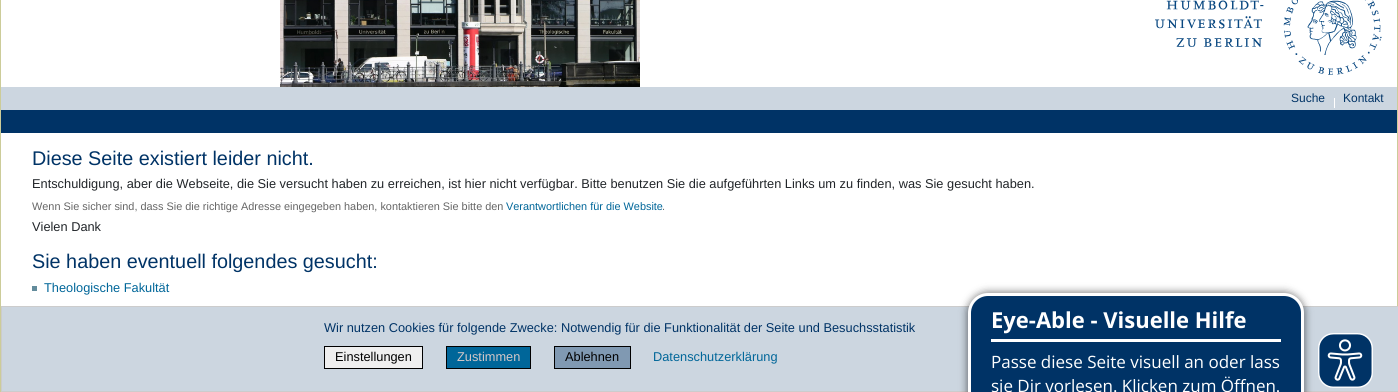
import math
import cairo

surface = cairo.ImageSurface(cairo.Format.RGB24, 1398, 392)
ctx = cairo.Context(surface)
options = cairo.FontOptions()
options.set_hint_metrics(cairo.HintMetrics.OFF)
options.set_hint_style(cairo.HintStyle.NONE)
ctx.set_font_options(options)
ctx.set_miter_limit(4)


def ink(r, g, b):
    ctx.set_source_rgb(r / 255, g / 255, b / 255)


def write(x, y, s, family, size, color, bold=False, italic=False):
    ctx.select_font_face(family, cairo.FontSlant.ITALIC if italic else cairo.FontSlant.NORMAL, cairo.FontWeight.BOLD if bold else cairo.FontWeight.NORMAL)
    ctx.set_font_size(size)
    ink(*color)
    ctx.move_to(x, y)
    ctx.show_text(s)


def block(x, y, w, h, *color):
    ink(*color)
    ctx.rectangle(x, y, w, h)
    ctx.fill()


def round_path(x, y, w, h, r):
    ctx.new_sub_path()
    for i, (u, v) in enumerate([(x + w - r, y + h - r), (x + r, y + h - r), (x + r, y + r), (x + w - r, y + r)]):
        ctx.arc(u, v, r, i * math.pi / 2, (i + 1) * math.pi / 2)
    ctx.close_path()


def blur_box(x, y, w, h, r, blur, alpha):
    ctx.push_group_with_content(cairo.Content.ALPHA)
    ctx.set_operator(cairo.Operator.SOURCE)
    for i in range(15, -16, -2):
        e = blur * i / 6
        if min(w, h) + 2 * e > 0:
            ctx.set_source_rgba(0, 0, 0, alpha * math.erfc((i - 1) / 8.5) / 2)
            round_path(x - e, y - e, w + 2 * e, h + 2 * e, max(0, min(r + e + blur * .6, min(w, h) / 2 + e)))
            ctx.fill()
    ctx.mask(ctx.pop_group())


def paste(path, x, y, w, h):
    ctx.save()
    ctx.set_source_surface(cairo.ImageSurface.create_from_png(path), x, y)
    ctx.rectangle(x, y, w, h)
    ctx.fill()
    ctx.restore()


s1 = dict(family="Liberation Sans", size=12, color=(0, 51, 102))
s2 = dict(family="Liberation Sans", size=19.8, color=(0, 51, 102))
s3 = dict(family="Liberation Sans", size=12.8, color=(33, 37, 41))
s4 = dict(family="Liberation Sans", size=10.9, color=(102, 102, 102))
s5 = dict(family="Liberation Sans", size=10.9, color=(0, 102, 153))
s6 = dict(family="Liberation Sans", size=12.8, color=(0, 102, 153))
s7 = dict(family="Liberation Sans", size=12.8, color=(0, 51, 102))
s8 = dict(family="Liberation Sans", size=12.8, color=(0, 0, 0))
s9 = dict(family="Liberation Sans", size=12.8, color=(213, 199, 199))
s10 = dict(family="Open Sans", size=22, color=(255, 255, 255), bold=True)
s11 = dict(family="Open Sans", size=17, color=(255, 255, 255))

ink(255, 255, 255)
ctx.paint()
paste("pic1.png", 280, 0, 360, 87)
paste("pic2.png", 1155, 0, 227, 75)
block(1397, 0, 1, 306, 204, 204, 153)
block(0, 0, 1, 392, 204, 204, 153)
block(1, 87, 1396, 23, 204, 214, 224)
write(1291, 102, "Suche", **s1)
block(1334, 98, 1, 10, 255, 255, 255)
write(1343, 102, "Kontakt", **s1)
block(1, 110, 1396, 23, 0, 51, 102)
write(32, 165, "Diese Seite existiert leider nicht.", **s2)
write(32, 188, "Entschuldigung, aber die Webseite, die Sie versucht haben zu erreichen, ist hier nicht verfügbar. Bitte benutzen Sie die aufgeführten Links um zu finden, was Sie gesucht haben.", **s3)
write(32, 210, "Wenn Sie sicher sind, dass Sie die richtige Adresse eingegeben haben, kontaktieren Sie bitte den", **s4)
write(506, 210, "Verantwortlichen für die Website", **s5)
write(662, 210, ".", **s4)
write(32, 231, "Vielen Dank", **s3)
write(32, 268, "Sie haben eventuell folgendes gesucht:", **s2)
block(32, 286, 5, 5, 99, 140, 156)
write(44, 292, "Theologische Fakultät", **s6)
ink(204, 214, 224)
ctx.rectangle(1.5, 306.5, 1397, 85)
ctx.fill_preserve()
ink(204, 204, 204)
ctx.set_line_width(1)
ctx.stroke()
write(324, 332, "Wir nutzen Cookies für folgende Zwecke: Notwendig für die Funktionalität der Seite und Besuchsstatistik", **s7)
ink(239, 239, 239)
ctx.rectangle(324.5, 346.5, 98, 22)
ctx.fill_preserve()
ink(0, 0, 0)
ctx.stroke()
write(335, 361, "Einstellungen", **s8)
ink(0, 102, 153)
ctx.rectangle(446.5, 346.5, 84, 22)
ctx.fill_preserve()
ink(0, 0, 0)
ctx.stroke()
write(457, 361, "Zustimmen", **s9)
ink(128, 153, 178)
ctx.rectangle(554.5, 346.5, 76, 22)
ctx.fill_preserve()
ink(0, 0, 0)
ctx.stroke()
write(565, 361, "Ablehnen", **s8)
write(653, 361, "Datenschutzerklärung", **s6)
ink(0, 0, 0)
blur_box(967, 292, 338, 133, 21, 4, 0.5)
ink(0, 51, 102)
round_path(969.5, 294.5, 333, 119, 18.5)
ctx.fill_preserve()
ink(255, 255, 255)
ctx.set_line_width(3)
ctx.stroke()
block(991, 339, 290, 3, 255, 255, 255)
write(991, 328, "Eye-Able - Visuelle Hilfe", **s10)
write(991, 368, "Passe diese Seite visuell an oder lass", **s11)
write(991, 392, "sie Dir vorlesen. Klicken zum Öffnen.", **s11)
paste("pic3.png", 1318, 333, 55, 55)
surface.write_to_png("screenshot.png")
